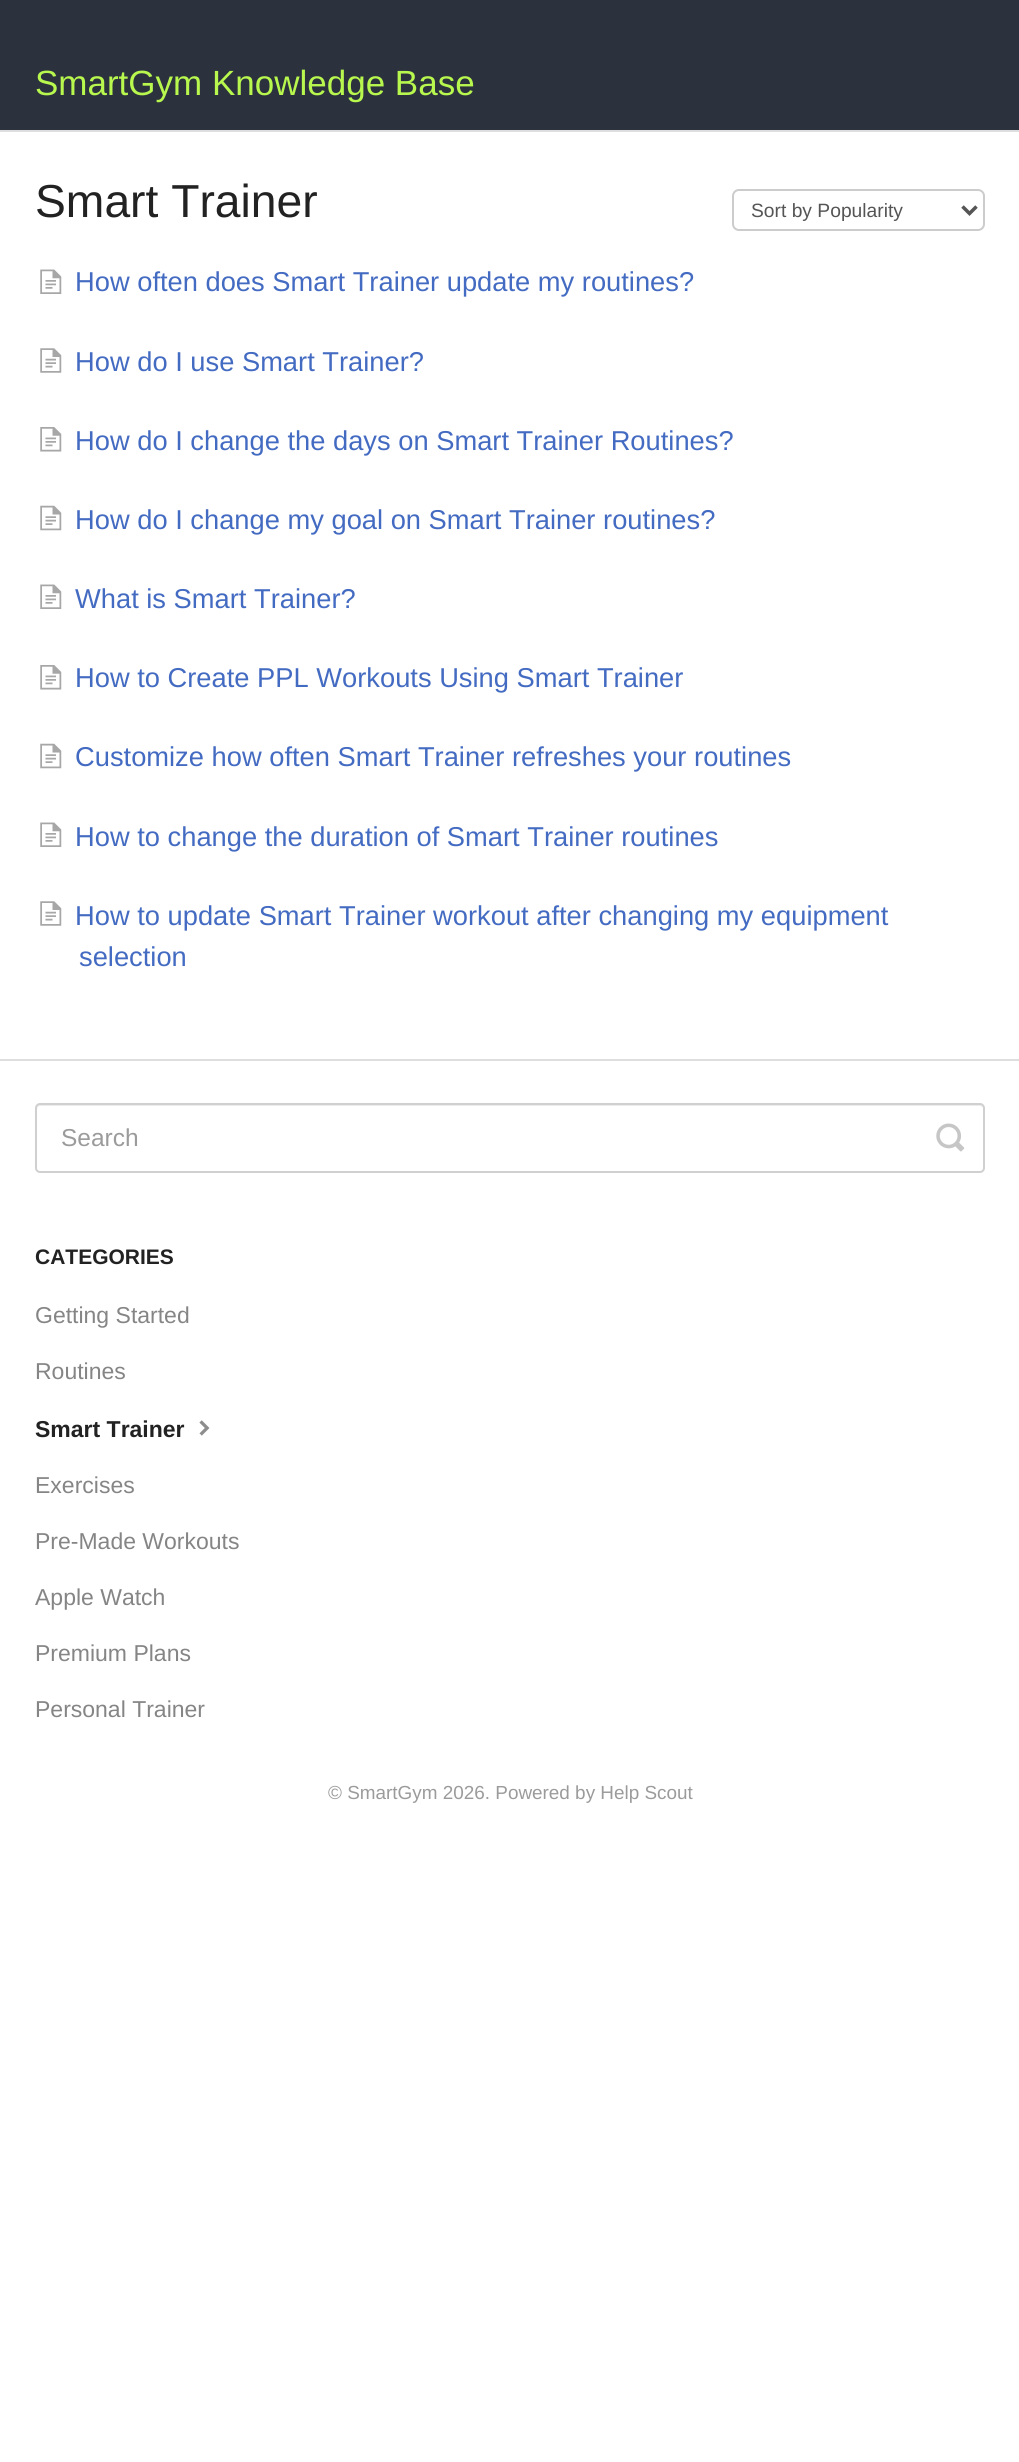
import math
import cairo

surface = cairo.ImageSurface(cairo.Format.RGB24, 1019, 2462)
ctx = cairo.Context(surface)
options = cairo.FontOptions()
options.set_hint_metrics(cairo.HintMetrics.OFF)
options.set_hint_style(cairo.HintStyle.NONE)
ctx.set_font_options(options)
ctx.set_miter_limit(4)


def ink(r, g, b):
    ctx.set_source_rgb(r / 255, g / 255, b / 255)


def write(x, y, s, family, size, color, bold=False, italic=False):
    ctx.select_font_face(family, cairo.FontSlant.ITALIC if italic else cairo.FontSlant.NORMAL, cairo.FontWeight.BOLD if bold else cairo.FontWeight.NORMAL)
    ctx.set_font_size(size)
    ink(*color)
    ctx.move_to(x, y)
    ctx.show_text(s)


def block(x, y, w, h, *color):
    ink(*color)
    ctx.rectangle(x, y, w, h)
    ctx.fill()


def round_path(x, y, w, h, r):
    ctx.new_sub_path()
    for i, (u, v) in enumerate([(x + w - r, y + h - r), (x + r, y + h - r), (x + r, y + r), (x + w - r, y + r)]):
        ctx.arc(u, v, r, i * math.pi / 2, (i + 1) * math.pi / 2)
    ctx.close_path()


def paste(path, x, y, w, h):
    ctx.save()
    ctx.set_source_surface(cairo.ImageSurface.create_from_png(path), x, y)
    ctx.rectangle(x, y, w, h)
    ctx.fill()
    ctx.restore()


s1 = dict(family="Liberation Sans", size=35, color=(184, 247, 78))
s2 = dict(family="Liberation Sans", size=46.25, color=(34, 34, 34))
s3 = dict(family="Liberation Sans", size=19.25, color=(85, 85, 85))
s4 = dict(family="Liberation Sans", size=27.3, color=(68, 107, 194))
s5 = dict(family="Liberation Sans", size=24.5, color=(155, 155, 155))
s6 = dict(family="Liberation Sans", size=21, color=(34, 34, 34), bold=True)
s7 = dict(family="Liberation Sans", size=23, color=(133, 133, 133))
s8 = dict(family="Liberation Sans", size=23, color=(34, 34, 34), bold=True)
s9 = dict(family="Liberation Sans", size=18.9, color=(155, 155, 155))

ink(255, 255, 255)
ctx.paint()
block(0, 0, 1019, 130, 44, 50, 61)
write(35, 95, "SmartGym Knowledge Base", **s1)
block(0, 130, 1019, 2, 222, 222, 222)
block(0, 1059, 1019, 2, 222, 222, 222)
write(35, 217, "Smart Trainer", **s2)
round_path(733, 190, 251, 40, 6)
ink(204, 204, 204)
ctx.stroke()
ctx.new_path()
ctx.move_to(962.5, 206.5)
ctx.line_to(969.5, 213.5)
ctx.line_to(976.5, 206.5)
ink(85, 85, 85)
ctx.set_line_width(3.5)
ctx.stroke()
write(751, 217, "Sort by Popularity", **s3)
paste("pic1.png", 40, 269, 22, 25)
write(75, 291, "How often does Smart Trainer update my routines?", **s4)
paste("pic2.png", 40, 348, 22, 25)
write(75, 371, "How do I use Smart Trainer?", **s4)
paste("pic3.png", 40, 427, 22, 25)
write(75, 450, "How do I change the days on Smart Trainer Routines?", **s4)
paste("pic4.png", 40, 505, 22, 26)
write(75, 529, "How do I change my goal on Smart Trainer routines?", **s4)
paste("pic1.png", 40, 584, 22, 25)
write(75, 608, "What is Smart Trainer?", **s4)
paste("pic3.png", 40, 665, 22, 25)
write(75, 687, "How to Create PPL Workouts Using Smart Trainer", **s4)
paste("pic4.png", 40, 743, 22, 26)
write(75, 766, "Customize how often Smart Trainer refreshes your routines", **s4)
paste("pic1.png", 40, 822, 22, 25)
write(75, 846, "How to change the duration of Smart Trainer routines", **s4)
paste("pic2.png", 40, 901, 22, 25)
write(75, 925, "How to update Smart Trainer workout after changing my equipment", **s4)
write(79, 966, "selection", **s4)
ink(236, 236, 236)
ctx.new_path()
ctx.move_to(40, 1106)
ctx.line_to(980, 1106)
ctx.curve_to(982, 1106, 984, 1108, 984, 1110)
ctx.line_to(984, 1108)
ctx.curve_to(984, 1106, 982, 1104, 980, 1104)
ctx.line_to(41, 1104)
ctx.curve_to(39, 1104, 37, 1106, 37, 1108)
ctx.line_to(37, 1110)
ctx.curve_to(37, 1108, 38, 1106, 40, 1106)
ctx.close_path()
ctx.fill()
round_path(36, 1104, 948, 68, 4)
ink(208, 208, 208)
ctx.set_line_width(2)
ctx.stroke()
write(61, 1146, "Search", **s5)
paste("pic5.png", 936, 1123, 29, 29)
write(35, 1264, "CATEGORIES", **s6)
write(35, 1323, "Getting Started", **s7)
write(35, 1379, "Routines", **s7)
write(35, 1437, "Smart Trainer", **s8)
paste("pic6.png", 199, 1420, 11, 16)
write(35, 1493, "Exercises", **s7)
write(35, 1549, "Pre-Made Workouts", **s7)
write(35, 1605, "Apple Watch", **s7)
write(35, 1661, "Premium Plans", **s7)
write(35, 1717, "Personal Trainer", **s7)
write(328, 1799, "© SmartGym 2026. Powered by Help Scout", **s9)
surface.write_to_png("screenshot.png")
